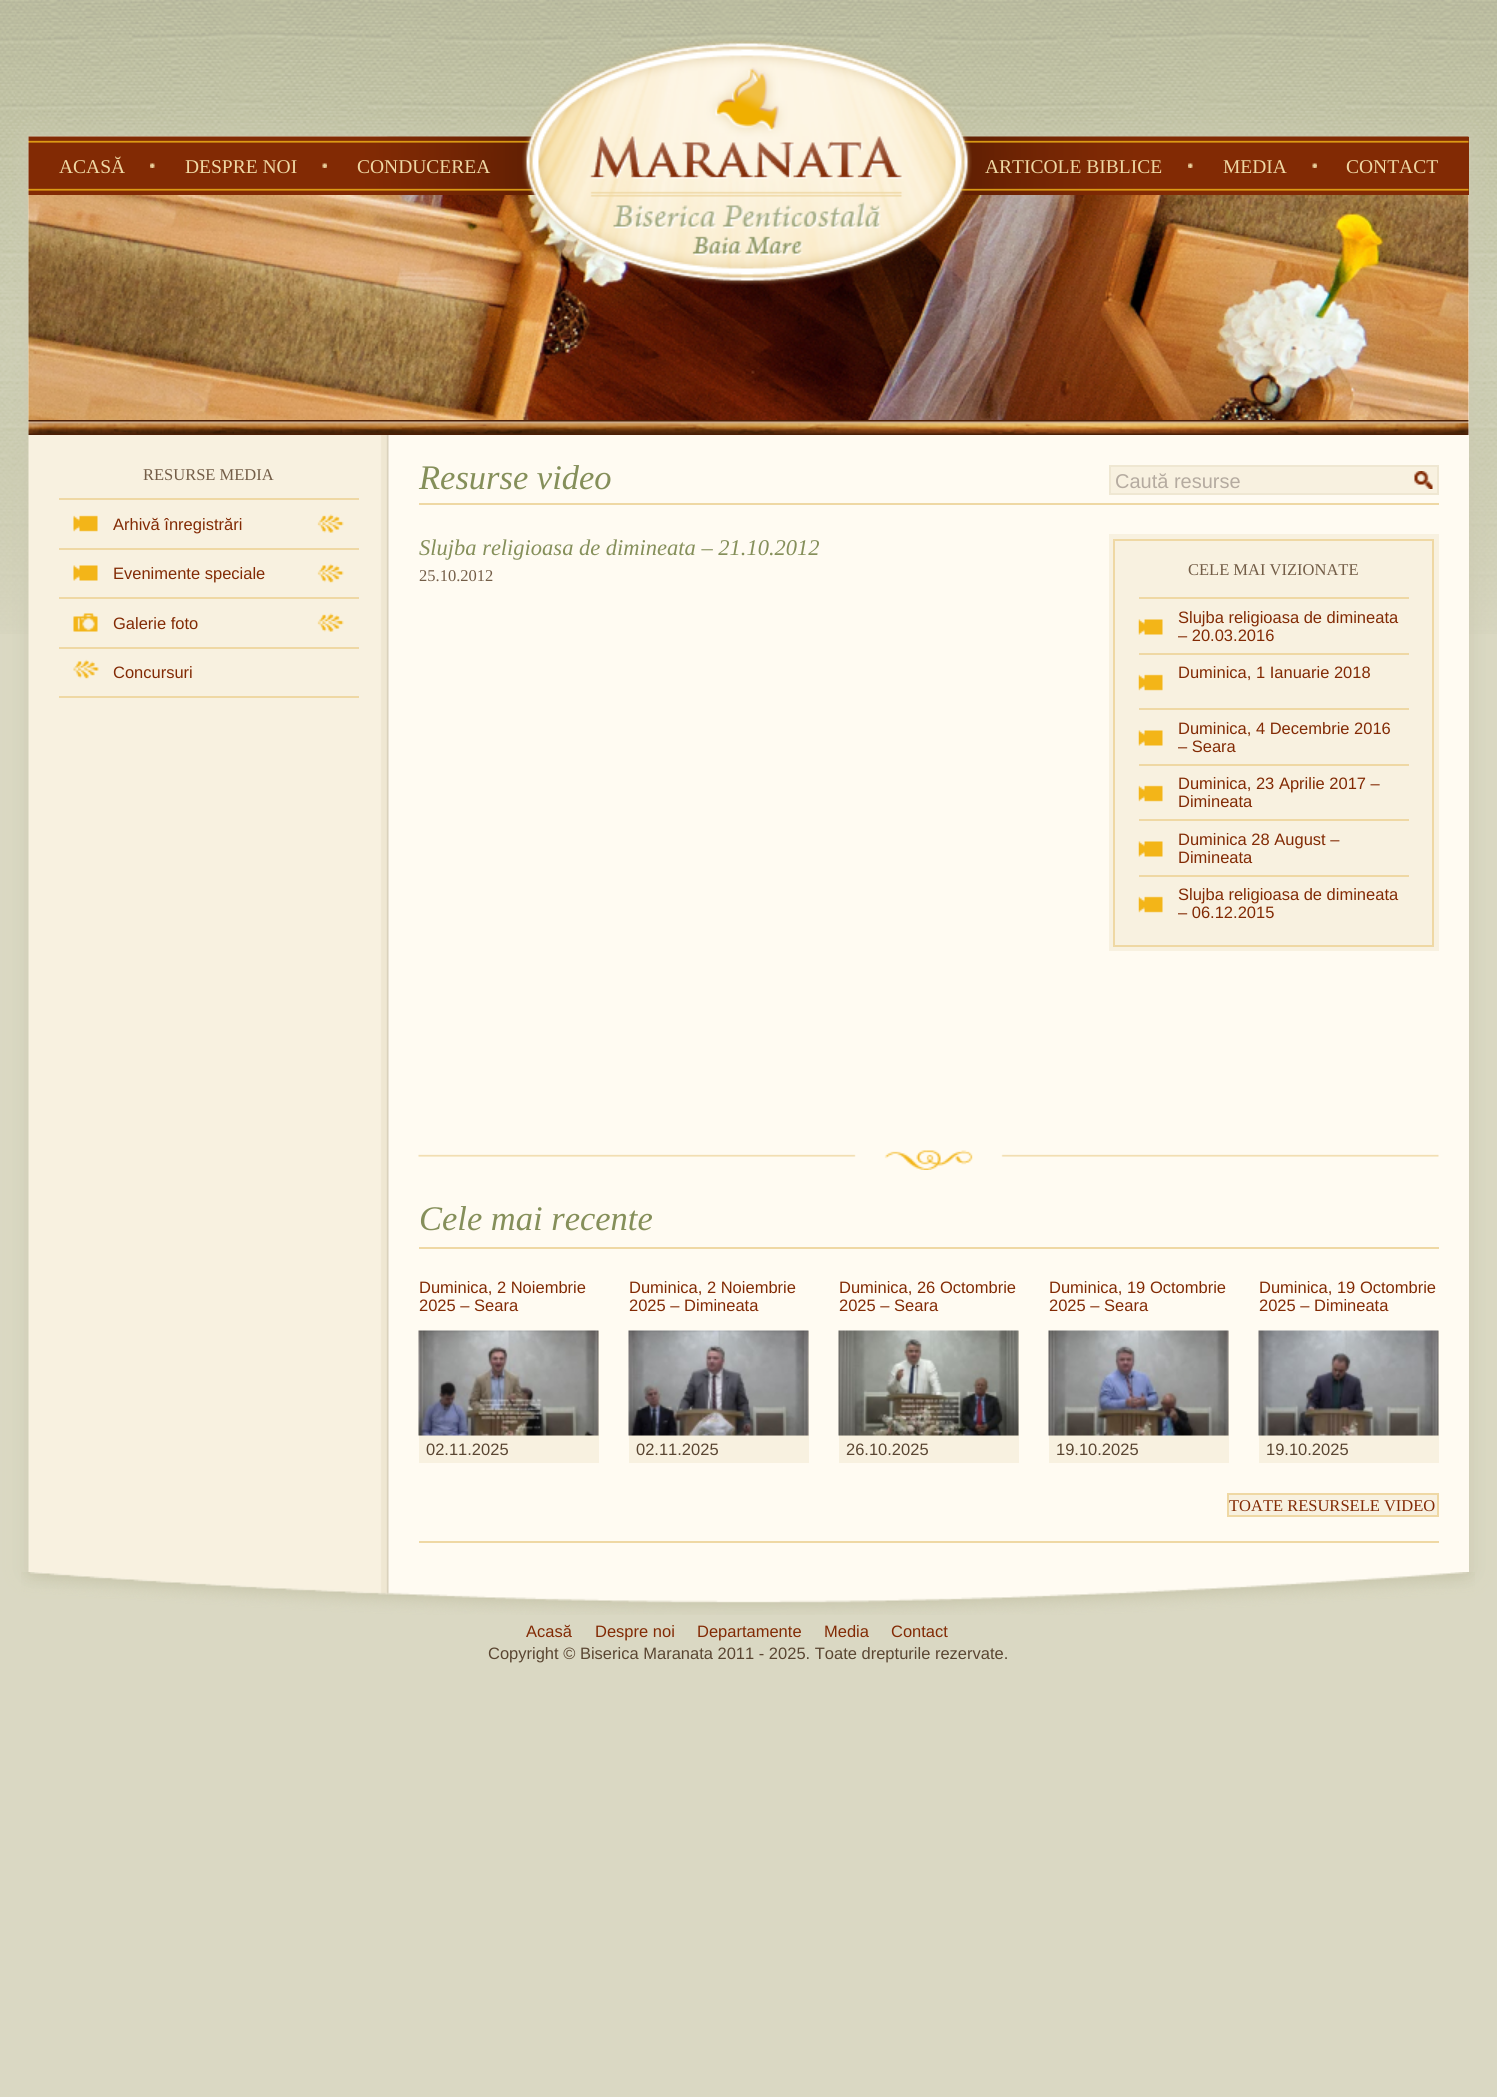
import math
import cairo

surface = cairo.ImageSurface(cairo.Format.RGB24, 1497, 2097)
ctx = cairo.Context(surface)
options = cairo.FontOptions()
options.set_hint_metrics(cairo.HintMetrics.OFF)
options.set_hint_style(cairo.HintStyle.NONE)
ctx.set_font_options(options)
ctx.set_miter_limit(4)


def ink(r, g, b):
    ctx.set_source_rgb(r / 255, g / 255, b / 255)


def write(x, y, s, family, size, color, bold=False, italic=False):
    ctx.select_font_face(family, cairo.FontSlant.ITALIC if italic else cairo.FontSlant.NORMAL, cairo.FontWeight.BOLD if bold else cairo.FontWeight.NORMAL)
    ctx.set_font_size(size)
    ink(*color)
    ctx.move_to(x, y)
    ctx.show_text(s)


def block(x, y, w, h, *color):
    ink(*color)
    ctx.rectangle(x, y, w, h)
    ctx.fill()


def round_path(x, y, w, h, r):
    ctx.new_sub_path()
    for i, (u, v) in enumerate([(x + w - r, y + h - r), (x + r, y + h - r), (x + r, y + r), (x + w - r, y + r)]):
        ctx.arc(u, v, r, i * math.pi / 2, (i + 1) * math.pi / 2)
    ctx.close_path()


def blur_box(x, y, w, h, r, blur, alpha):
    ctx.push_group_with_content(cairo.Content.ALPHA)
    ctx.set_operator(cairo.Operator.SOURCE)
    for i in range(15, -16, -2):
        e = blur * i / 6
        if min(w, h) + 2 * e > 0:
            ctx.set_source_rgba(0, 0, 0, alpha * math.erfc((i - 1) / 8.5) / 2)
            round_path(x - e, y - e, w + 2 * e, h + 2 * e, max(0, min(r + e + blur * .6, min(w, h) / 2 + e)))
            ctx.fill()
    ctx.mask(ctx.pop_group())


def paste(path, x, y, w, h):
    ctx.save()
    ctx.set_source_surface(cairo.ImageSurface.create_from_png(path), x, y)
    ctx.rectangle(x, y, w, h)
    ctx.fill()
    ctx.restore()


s1 = dict(family="Liberation Serif", size=19.5, color=(239, 216, 164))
s2 = dict(family="Liberation Serif", size=16.5, color=(115, 93, 71))
s3 = dict(family="Liberation Sans", size=16.5, color=(130, 42, 4))
s4 = dict(family="Liberation Serif", size=34.5, color=(133, 143, 90), italic=True)
s5 = dict(family="Liberation Sans", size=20, color=(181, 171, 160))
s6 = dict(family="Liberation Serif", size=22.5, color=(133, 143, 90), italic=True)
s7 = dict(family="Liberation Sans", size=16.5, color=(90, 70, 50))
s8 = dict(family="Liberation Serif", size=16.5, color=(130, 42, 4))

ink(218, 216, 195)
ctx.paint()
paste("pic1.png", 0, 0, 1497, 634)
ink(204, 202, 177)
blur_box(29, 137, 1440, 1435, 0, 11, 1)
block(388, 195, 1081, 1377, 255, 251, 242)
paste("pic3.png", 28, 136, 361, 1436)
block(1468, 137, 1, 58, 130, 42, 4)
paste("pic4.png", 28, 136, 1441, 59)
paste("pic9.png", 28, 195, 1441, 225)
paste("pic2.png", 522, 40, 450, 245)
paste("pic5.png", 150, 163, 5, 5)
write(59, 173, "ACASĂ", **s1)
paste("pic6.png", 322, 163, 5, 5)
write(185, 173, "DESPRE NOI", **s1)
write(357, 173, "CONDUCEREA", **s1)
paste("pic7.png", 1188, 163, 5, 5)
write(985, 173, "ARTICOLE BIBLICE", **s1)
paste("pic8.png", 1312, 163, 5, 5)
write(1223, 173, "MEDIA", **s1)
write(1346, 173, "CONTACT", **s1)
paste("pic10.png", 28, 420, 1441, 15)
block(59, 498, 300, 2, 239, 216, 164)
write(143, 480, "RESURSE MEDIA", **s2)
block(59, 548, 300, 2, 239, 216, 164)
paste("pic11.png", 73, 514, 271, 19)
write(113, 530, "Arhivă înregistrări", **s3)
block(59, 597, 300, 2, 239, 216, 164)
paste("pic12.png", 73, 563, 271, 20)
write(113, 579, "Evenimente speciale", **s3)
block(59, 647, 300, 2, 239, 216, 164)
paste("pic13.png", 73, 613, 271, 19)
write(113, 629, "Galerie foto", **s3)
block(59, 696, 300, 2, 239, 216, 164)
paste("pic14.png", 73, 659, 26, 20)
write(113, 678, "Concursuri", **s3)
paste("pic15.png", 418, 1150, 1021, 20)
block(419, 503, 1020, 2, 239, 216, 164)
write(419, 489, "Resurse video", **s4)
ink(248, 241, 224)
ctx.rectangle(1110, 466, 328, 28)
ctx.fill_preserve()
ink(239, 231, 210)
ctx.stroke()
write(1115, 488, "Caută resurse", **s5)
paste("pic16.png", 1414, 471, 19, 18)
write(419, 555, "Slujba religioasa de dimineata – 21.10.2012", **s6)
write(419, 581, "25.10.2012", **s2)
block(1109, 534, 330, 417, 248, 241, 224)
ctx.rectangle(1114, 540, 319, 406)
ink(239, 216, 164)
ctx.stroke()
write(1188, 575, "CELE MAI VIZIONATE", **s2)
block(1139, 597, 270, 2, 239, 216, 164)
paste("pic17.png", 1138, 619, 25, 16)
write(1178, 623, "Slujba religioasa de dimineata", **s3)
write(1178, 641, "– 20.03.2016", **s3)
block(1139, 653, 270, 2, 239, 216, 164)
paste("pic18.png", 1138, 674, 25, 17)
write(1178, 678, "Duminica, 1 Ianuarie 2018", **s3)
block(1139, 708, 270, 2, 239, 216, 164)
paste("pic17.png", 1138, 730, 25, 16)
write(1178, 734, "Duminica, 4 Decembrie 2016", **s3)
write(1178, 752, "– Seara", **s3)
block(1139, 764, 270, 2, 239, 216, 164)
paste("pic18.png", 1138, 785, 25, 17)
write(1178, 789, "Duminica, 23 Aprilie 2017 –", **s3)
write(1178, 807, "Dimineata", **s3)
block(1139, 819, 270, 2, 239, 216, 164)
paste("pic17.png", 1138, 841, 25, 16)
write(1178, 845, "Duminica 28 August –", **s3)
write(1178, 863, "Dimineata", **s3)
block(1139, 875, 270, 2, 239, 216, 164)
paste("pic18.png", 1138, 896, 25, 17)
write(1178, 900, "Slujba religioasa de dimineata", **s3)
write(1178, 918, "– 06.12.2015", **s3)
block(419, 1541, 1020, 2, 239, 216, 164)
block(419, 1247, 1020, 2, 239, 216, 164)
write(419, 1230, "Cele mai recente", **s4)
write(419, 1293, "Duminica, 2 Noiembrie", **s3)
write(419, 1311, "2025 – Seara", **s3)
block(419, 1331, 180, 105, 239, 231, 210)
paste("pic19.png", 418, 1330, 181, 106)
block(419, 1436, 180, 27, 248, 241, 224)
write(426, 1455, "02.11.2025", **s7)
write(629, 1293, "Duminica, 2 Noiembrie", **s3)
write(629, 1311, "2025 – Dimineata", **s3)
block(629, 1331, 180, 105, 239, 231, 210)
paste("pic20.png", 628, 1330, 181, 106)
block(629, 1436, 180, 27, 248, 241, 224)
write(636, 1455, "02.11.2025", **s7)
write(839, 1293, "Duminica, 26 Octombrie", **s3)
write(839, 1311, "2025 – Seara", **s3)
block(839, 1331, 180, 105, 239, 231, 210)
paste("pic21.png", 838, 1330, 181, 106)
block(839, 1436, 180, 27, 248, 241, 224)
write(846, 1455, "26.10.2025", **s7)
write(1049, 1293, "Duminica, 19 Octombrie", **s3)
write(1049, 1311, "2025 – Seara", **s3)
block(1049, 1331, 180, 105, 239, 231, 210)
paste("pic22.png", 1048, 1330, 181, 106)
block(1049, 1436, 180, 27, 248, 241, 224)
write(1056, 1455, "19.10.2025", **s7)
write(1259, 1293, "Duminica, 19 Octombrie", **s3)
write(1259, 1311, "2025 – Dimineata", **s3)
block(1259, 1331, 180, 105, 239, 231, 210)
paste("pic23.png", 1258, 1330, 181, 106)
block(1259, 1436, 180, 27, 248, 241, 224)
write(1266, 1455, "19.10.2025", **s7)
ink(248, 241, 224)
ctx.rectangle(1228, 1494, 210, 22)
ctx.fill_preserve()
ink(239, 216, 164)
ctx.stroke()
write(1229, 1511, "TOATE RESURSELE VIDEO", **s8)
paste("pic24.png", 21, 1572, 1454, 43)
write(526, 1637, "Acasă", **s3)
write(595, 1637, "Despre noi", **s3)
write(697, 1637, "Departamente", **s3)
write(824, 1637, "Media", **s3)
write(891, 1637, "Contact", **s3)
write(488, 1659, "Copyright © Biserica Maranata 2011 - 2025. Toate drepturile rezervate.", **s7)
surface.write_to_png("screenshot.png")
